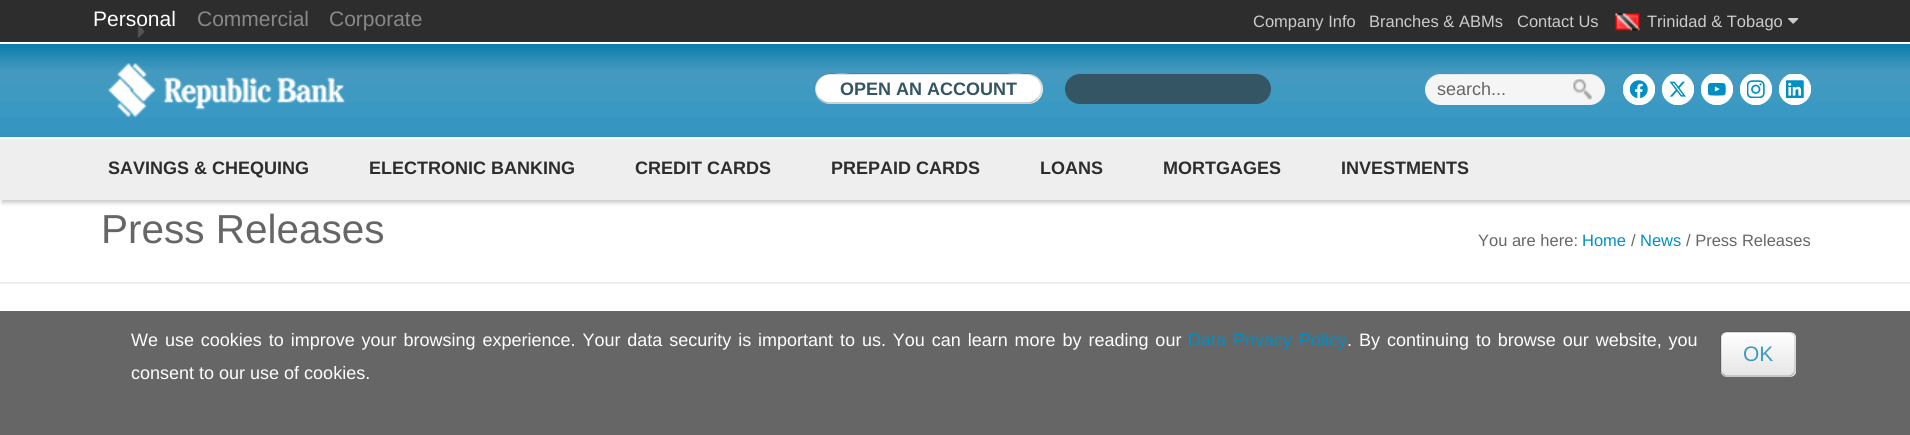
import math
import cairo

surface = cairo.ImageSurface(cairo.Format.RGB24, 1910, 435)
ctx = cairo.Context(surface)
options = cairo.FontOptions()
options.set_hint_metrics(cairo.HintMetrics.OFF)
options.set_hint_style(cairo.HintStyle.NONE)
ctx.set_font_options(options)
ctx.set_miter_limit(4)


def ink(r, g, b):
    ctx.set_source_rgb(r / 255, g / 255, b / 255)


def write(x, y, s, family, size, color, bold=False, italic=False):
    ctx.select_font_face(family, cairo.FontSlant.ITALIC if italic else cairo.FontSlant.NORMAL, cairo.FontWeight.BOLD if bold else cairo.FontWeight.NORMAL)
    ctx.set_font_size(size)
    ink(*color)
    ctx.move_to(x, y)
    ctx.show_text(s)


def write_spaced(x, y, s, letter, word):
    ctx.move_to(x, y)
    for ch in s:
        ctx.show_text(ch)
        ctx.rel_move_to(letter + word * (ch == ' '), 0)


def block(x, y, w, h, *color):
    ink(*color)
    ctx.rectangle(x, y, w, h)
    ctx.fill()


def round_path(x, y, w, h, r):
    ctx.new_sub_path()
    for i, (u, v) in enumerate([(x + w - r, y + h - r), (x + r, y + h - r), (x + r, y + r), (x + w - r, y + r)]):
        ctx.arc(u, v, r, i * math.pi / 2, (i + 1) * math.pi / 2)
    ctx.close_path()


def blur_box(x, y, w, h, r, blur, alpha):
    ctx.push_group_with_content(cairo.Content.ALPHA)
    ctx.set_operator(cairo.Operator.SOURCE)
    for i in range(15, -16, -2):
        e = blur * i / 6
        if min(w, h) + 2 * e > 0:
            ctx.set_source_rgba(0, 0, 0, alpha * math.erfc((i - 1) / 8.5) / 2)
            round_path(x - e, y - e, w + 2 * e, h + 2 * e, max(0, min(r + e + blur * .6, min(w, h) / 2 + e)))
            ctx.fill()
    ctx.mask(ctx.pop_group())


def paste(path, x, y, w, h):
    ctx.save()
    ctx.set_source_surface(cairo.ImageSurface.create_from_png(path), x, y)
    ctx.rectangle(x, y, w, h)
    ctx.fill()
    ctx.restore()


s1 = dict(family="Liberation Sans", size=21, color=(255, 255, 255))
s2 = dict(family="Liberation Sans", size=21, color=(136, 136, 136))
s3 = dict(family="Liberation Sans", size=16.5, color=(204, 204, 204))
s4 = dict(family="Liberation Sans", size=18, color=(52, 85, 100), bold=True)
s5 = dict(family="Liberation Sans", size=18, color=(102, 102, 102))
s6 = dict(family="Liberation Sans", size=18, color=(45, 45, 45), bold=True)
s7 = dict(family="Liberation Sans", size=40.5, color=(102, 102, 102))
s8 = dict(family="Liberation Sans", size=16.5, color=(102, 102, 102))
s9 = dict(family="Liberation Sans", size=16.5, color=(0, 143, 195))
s10 = dict(family="Liberation Sans", size=18, color=(255, 255, 255))
s11 = dict(family="Liberation Sans", size=21, color=(63, 154, 194))

ink(255, 255, 255)
ctx.paint()
block(0, 0, 1910, 42, 45, 45, 45)
paste("pic1.png", 137, 25, 8, 13)
write(93, 26, "Personal", **s1)
write(197, 26, "Commercial", **s2)
write(329, 26, "Corporate", **s2)
write(1253, 27, "Company Info", **s3)
write(1369, 27, "Branches & ABMs", **s3)
write(1517, 27, "Contact Us", **s3)
paste("pic2.png", 1615, 13, 25, 18)
write(1647, 27, "Trinidad & Tobago", **s3)
paste("pic3.png", 1788, 18, 11, 6)
ink(0, 0, 0)
blur_box(2, 141, 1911, 62, 0, 2, 0.2)
paste("pic4.png", 0, 44, 1910, 93)
block(0, 138, 1910, 1, 255, 255, 255)
paste("pic5.png", 108, 63, 237, 54)
round_path(815, 74, 228, 30, 15)
ctx.fill()
ctx.new_path()
ctx.move_to(830, 76)
ctx.line_to(1028, 76)
ctx.curve_to(1035, 76, 1041, 83, 1041, 89)
ctx.curve_to(1042, 67, 1002, 75, 994, 75)
ctx.line_to(862, 75)
ctx.curve_to(855, 75, 815, 67, 816, 89)
ctx.curve_to(816, 83, 822, 76, 830, 76)
ctx.close_path()
ctx.fill()
ctx.new_path()
ctx.move_to(1037.5, 98.5)
ctx.curve_to(1035, 101, 1031.5, 103, 1027.5, 103)
ctx.line_to(829.5, 103)
ctx.curve_to(825.5, 103, 822, 101, 819.5, 98.5)
ctx.set_source_rgba(0, 0, 0, 0.25)
ctx.set_line_width(1.5)
ctx.stroke()
ctx.new_path()
ctx.move_to(819.5, 98.5)
ctx.curve_to(810.5, 90, 817, 74.5, 829.5, 74)
ctx.line_to(1027.5, 74)
ctx.curve_to(1033, 74.5, 1038.5, 78, 1040.5, 83)
ctx.curve_to(1043, 88.5, 1041.5, 94.5, 1037.5, 98.5)
ctx.set_source_rgba(0, 0, 0, 0.15)
ctx.stroke()
write(840, 95, "OPEN AN ACCOUNT", **s4)
round_path(1065, 74, 206, 30, 15)
ctx.fill()
ink(245, 245, 245)
round_path(1425, 74, 180, 31, 15.5)
ctx.fill()
ctx.set_source_rgba(0, 0, 0, 0.07)
ctx.new_path()
ctx.move_to(1441, 75)
ctx.line_to(1589, 75)
ctx.curve_to(1598, 75, 1605, 82, 1605, 90)
ctx.curve_to(1606, 69, 1576, 74, 1565, 74)
ctx.line_to(1465, 74)
ctx.curve_to(1454, 74, 1424, 69, 1425, 90)
ctx.curve_to(1425, 82, 1432, 75, 1441, 75)
ctx.close_path()
ctx.fill()
write(1437, 95, "search...", **s5)
paste("pic6.png", 1573, 79, 19, 21)
ink(255, 255, 255)
round_path(1623, 74, 32, 31, 15.5)
ctx.fill()
paste("pic7.png", 1623, 74, 32, 31)
round_path(1662, 74, 32, 31, 15.5)
ctx.fill()
paste("pic8.png", 1662, 74, 32, 31)
round_path(1701, 74, 32, 31, 15.5)
ctx.fill()
paste("pic9.png", 1701, 74, 32, 31)
round_path(1740, 74, 32, 31, 15.5)
ctx.fill()
paste("pic10.png", 1740, 74, 32, 31)
round_path(1779, 74, 32, 31, 15.5)
ctx.fill()
paste("pic11.png", 1779, 74, 32, 31)
block(0, 139, 1910, 61, 238, 238, 238)
write(108, 174, "SAVINGS & CHEQUING", **s6)
write(369, 174, "ELECTRONIC BANKING", **s6)
write(635, 174, "CREDIT CARDS", **s6)
write(831, 174, "PREPAID CARDS", **s6)
write(1040, 174, "LOANS", **s6)
write(1163, 174, "MORTGAGES", **s6)
write(1341, 174, "INVESTMENTS", **s6)
block(0, 282, 1910, 2, 238, 238, 238)
write(101, 243, "Press Releases", **s7)
write(1478, 246, "You are here:", **s8)
write(1582, 246, "Home", **s9)
write(1631, 246, "/", **s8)
write(1640, 246, "News", **s9)
write(1686, 246, "/ Press Releases", **s8)
block(0, 311, 1910, 124, 102, 102, 102)
ctx.set_font_size(18)
ink(255, 255, 255)
write_spaced(131, 346, "We use cookies to improve your browsing experience. Your data security is important to us. You can learn more by reading our", 0, 1.9)
ink(0, 143, 195)
write_spaced(1188, 346, "Data Privacy Policy", 0, 1.9)
write(1347, 346, ".", **s10)
write_spaced(1359, 346, "By continuing to browse our website, you", 0, 1.9)
write(131, 379, "consent to our use of cookies.", **s10)
ink(245, 245, 245)
round_path(1721, 332, 75, 45, 6)
ctx.fill()
ctx.save()
round_path(1721, 332, 75, 45, 6)
ctx.clip()
gradient = cairo.LinearGradient(1758, 333, 1758, 375)
gradient.add_color_stop_rgba(0, 1, 1, 1, 1)
gradient.add_color_stop_rgba(1, 0.902, 0.902, 0.902, 1)
ctx.set_source(gradient)
ctx.rectangle(1721, 333, 75, 42)
ctx.fill()
ctx.restore()
ctx.new_path()
ctx.move_to(1793, 374)
ctx.curve_to(1792, 375, 1791, 376, 1789.5, 376)
ctx.line_to(1726.5, 376)
ctx.curve_to(1725, 376, 1724, 375, 1723, 374)
ctx.set_source_rgba(0, 0, 0, 0.25)
ctx.stroke()
ctx.new_path()
ctx.move_to(1723, 374)
ctx.curve_to(1722, 373, 1721, 372, 1721, 370.5)
ctx.line_to(1721, 337.5)
ctx.curve_to(1721, 336, 1722, 335, 1723, 334)
ctx.curve_to(1724, 333, 1725, 332, 1726.5, 332)
ctx.line_to(1789.5, 332)
ctx.curve_to(1791, 332, 1792, 333, 1793, 334)
ctx.curve_to(1794, 335, 1795, 336, 1795, 337.5)
ctx.line_to(1795, 370.5)
ctx.curve_to(1795, 372, 1794, 373, 1793, 374)
ctx.set_source_rgba(0, 0, 0, 0.15)
ctx.stroke()
write(1743, 361, "OK", **s11)
surface.write_to_png("screenshot.png")
